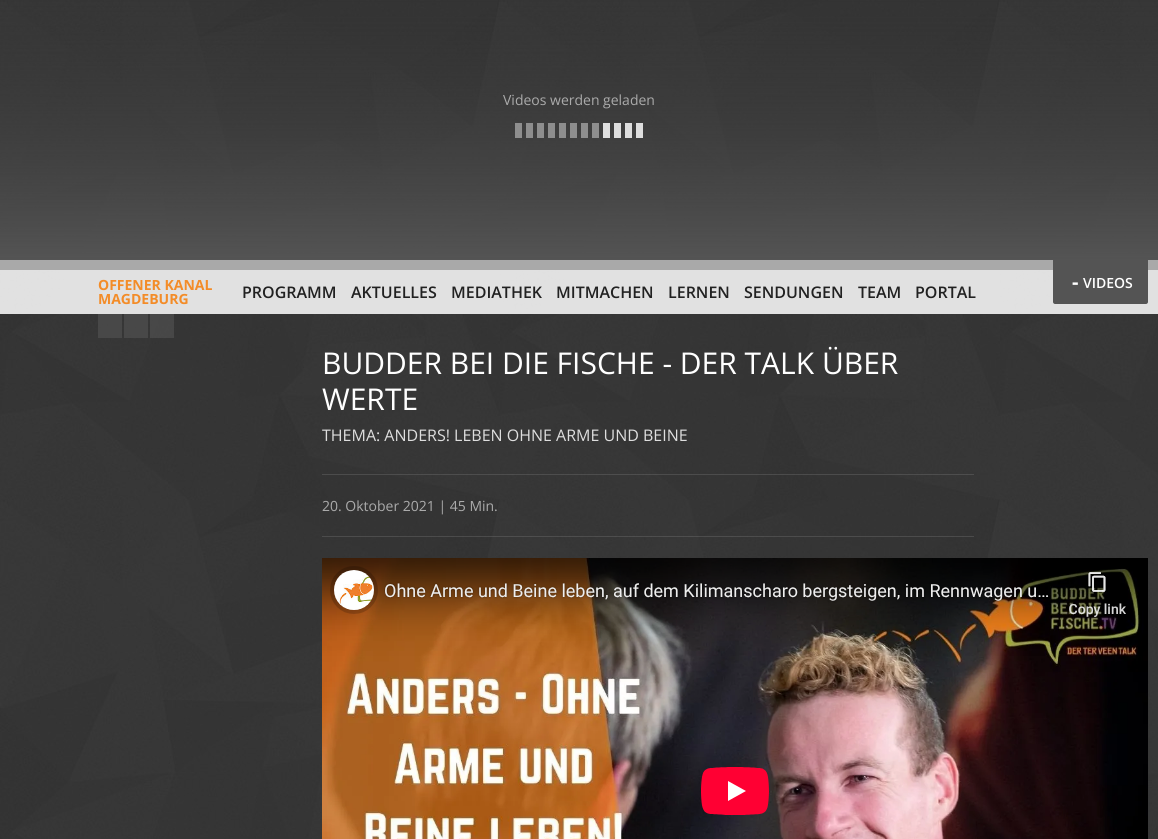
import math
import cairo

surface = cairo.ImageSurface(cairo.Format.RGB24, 1158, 839)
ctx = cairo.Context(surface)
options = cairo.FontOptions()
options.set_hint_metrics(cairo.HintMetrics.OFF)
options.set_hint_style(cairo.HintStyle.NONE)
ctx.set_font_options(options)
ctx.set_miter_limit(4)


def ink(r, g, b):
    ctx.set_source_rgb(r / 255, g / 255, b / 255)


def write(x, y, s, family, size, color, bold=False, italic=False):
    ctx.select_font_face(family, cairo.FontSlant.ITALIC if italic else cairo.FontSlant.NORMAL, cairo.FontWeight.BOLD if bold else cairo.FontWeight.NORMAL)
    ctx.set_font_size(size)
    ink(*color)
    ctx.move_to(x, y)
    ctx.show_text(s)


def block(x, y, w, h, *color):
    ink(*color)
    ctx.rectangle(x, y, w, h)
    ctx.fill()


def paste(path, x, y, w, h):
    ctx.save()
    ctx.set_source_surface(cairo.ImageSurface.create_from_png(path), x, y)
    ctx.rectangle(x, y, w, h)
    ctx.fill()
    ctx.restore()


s1 = dict(family="Open Sans", size=14, color=(171, 171, 171))
s2 = dict(family="Open Sans", size=14, color=(243, 140, 40), bold=True)
s3 = dict(family="Open Sans SemiBold", size=16, color=(33, 33, 33))
s4 = dict(family="Open Sans", size=20, color=(255, 255, 255), bold=True)
s5 = dict(family="Open Sans SemiBold", size=14, color=(255, 255, 255))
s6 = dict(family="Open Sans", size=30, color=(255, 255, 255))
s7 = dict(family="Open Sans", size=16, color=(222, 222, 222))

ink(255, 255, 255)
ctx.paint()
paste("pic1.png", 0, 0, 1158, 839)
paste("pic2.png", 515, 123, 128, 15)
write(503, 105, "Videos werden geladen", **s1)
ctx.set_source_rgba(1, 1, 1, 0.85)
ctx.rectangle(0, 270, 1158, 44)
ctx.fill()
block(0, 260, 1158, 10, 169, 169, 169)
write(98, 290, "OFFENER KANAL", **s2)
write(98, 304, "MAGDEBURG", **s2)
write(242, 298, "PROGRAMM", **s3)
write(351, 298, "AKTUELLES", **s3)
write(451, 298, "MEDIATHEK", **s3)
write(556, 298, "MITMACHEN", **s3)
write(668, 298, "LERNEN", **s3)
write(744, 298, "SENDUNGEN", **s3)
write(858, 298, "TEAM", **s3)
write(915, 298, "PORTAL", **s3)
ink(84, 84, 84)
ctx.new_path()
ctx.move_to(1053, 260)
ctx.line_to(1148, 260)
ctx.line_to(1148, 302)
ctx.curve_to(1148, 303, 1147, 304, 1146, 304)
ctx.line_to(1055, 304)
ctx.curve_to(1054, 304, 1053, 303, 1053, 302)
ctx.close_path()
ctx.fill()
write(1072, 289, "-", **s4)
write(1083, 288, "VIDEOS", **s5)
ctx.set_source_rgba(0.329, 0.329, 0.329, 0.6)
ctx.rectangle(98, 314, 24, 24)
ctx.fill()
ctx.rectangle(124, 314, 24, 24)
ctx.fill()
ctx.rectangle(150, 314, 24, 24)
ctx.fill()
write(322, 374, "BUDDER BEI DIE FISCHE - DER TALK ÜBER", **s6)
write(322, 410, "WERTE", **s6)
write(322, 441, "THEMA: ANDERS! LEBEN OHNE ARME UND BEINE", **s7)
ctx.set_source_rgba(0.671, 0.671, 0.671, 0.2)
ctx.rectangle(322, 474, 652, 1)
ctx.fill()
ctx.rectangle(322, 536, 652, 1)
ctx.fill()
write(322, 511, "20. Oktober 2021 | 45 Min.", **s1)
paste("pic3.png", 322, 558, 826, 281)
surface.write_to_png("screenshot.png")
